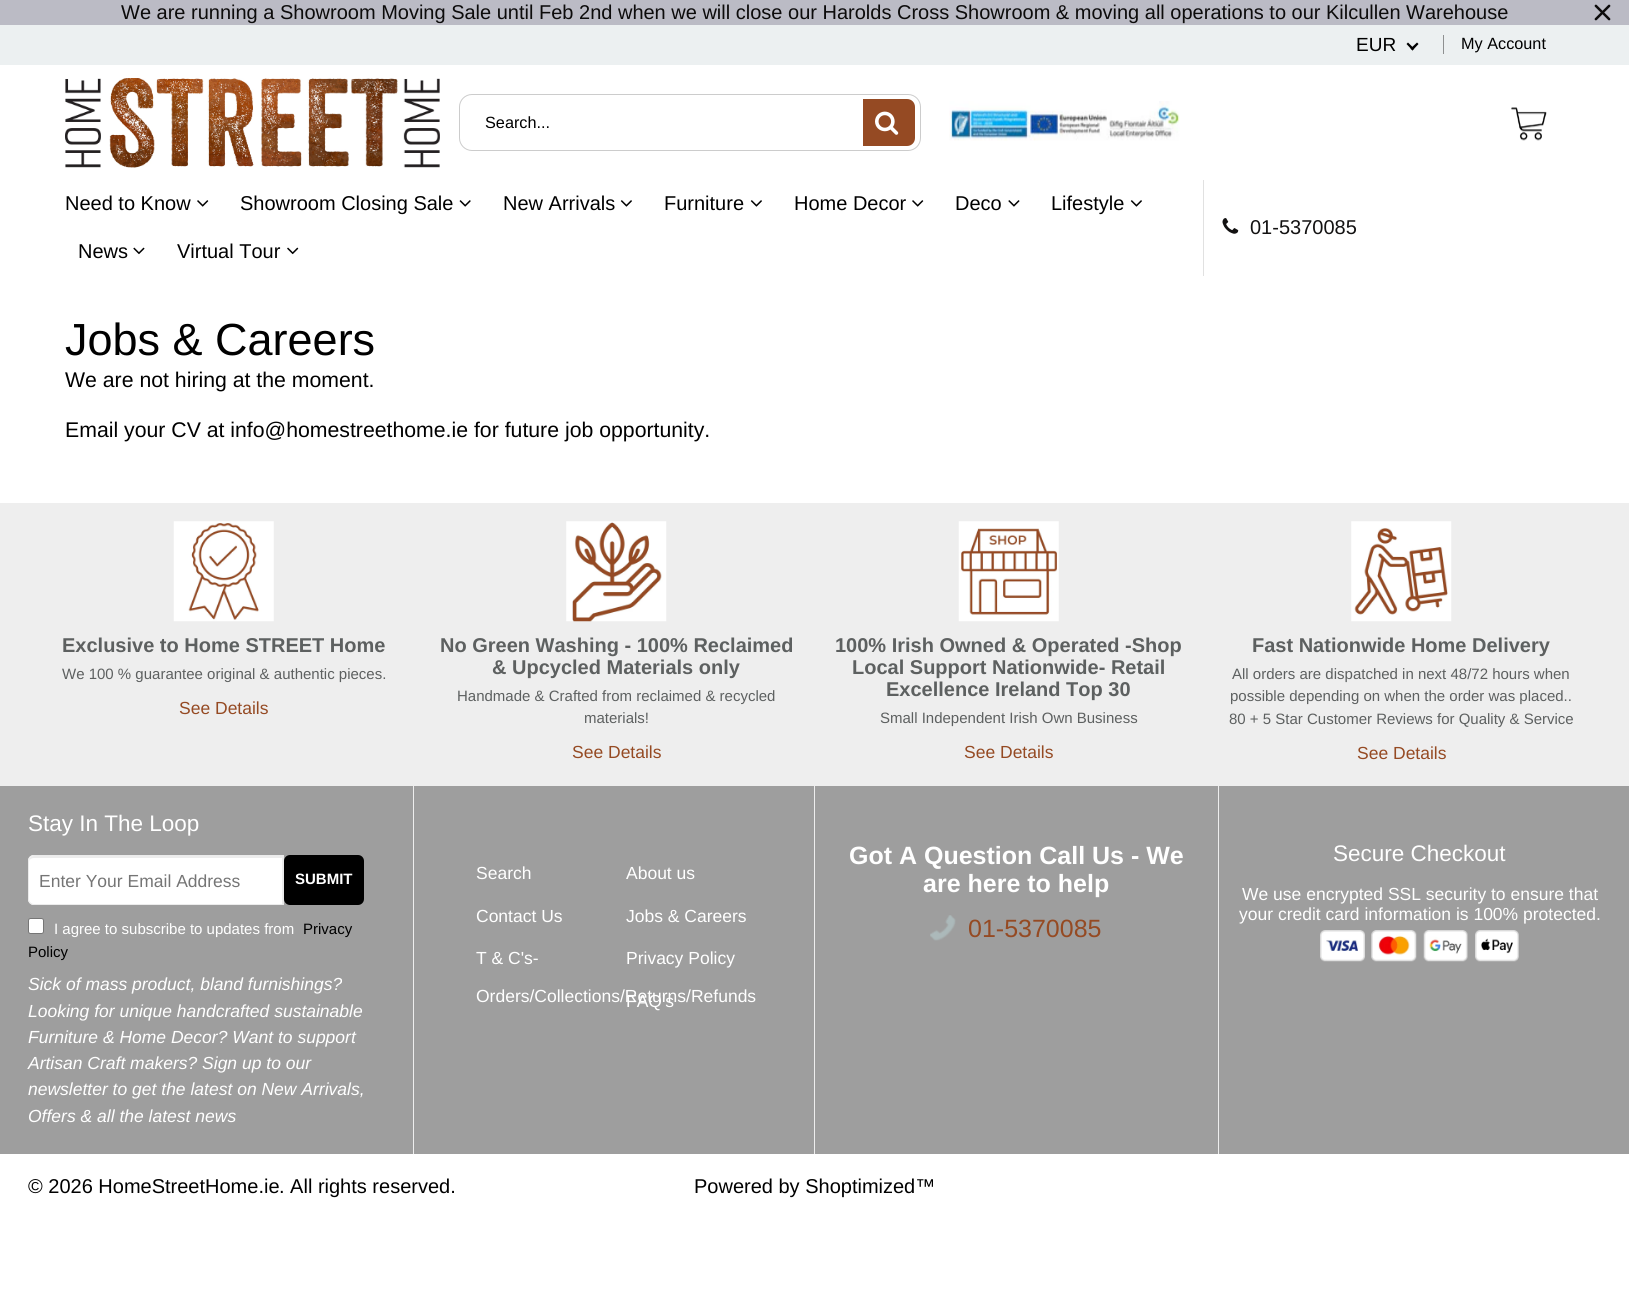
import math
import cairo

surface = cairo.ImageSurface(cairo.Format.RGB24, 1629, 1295)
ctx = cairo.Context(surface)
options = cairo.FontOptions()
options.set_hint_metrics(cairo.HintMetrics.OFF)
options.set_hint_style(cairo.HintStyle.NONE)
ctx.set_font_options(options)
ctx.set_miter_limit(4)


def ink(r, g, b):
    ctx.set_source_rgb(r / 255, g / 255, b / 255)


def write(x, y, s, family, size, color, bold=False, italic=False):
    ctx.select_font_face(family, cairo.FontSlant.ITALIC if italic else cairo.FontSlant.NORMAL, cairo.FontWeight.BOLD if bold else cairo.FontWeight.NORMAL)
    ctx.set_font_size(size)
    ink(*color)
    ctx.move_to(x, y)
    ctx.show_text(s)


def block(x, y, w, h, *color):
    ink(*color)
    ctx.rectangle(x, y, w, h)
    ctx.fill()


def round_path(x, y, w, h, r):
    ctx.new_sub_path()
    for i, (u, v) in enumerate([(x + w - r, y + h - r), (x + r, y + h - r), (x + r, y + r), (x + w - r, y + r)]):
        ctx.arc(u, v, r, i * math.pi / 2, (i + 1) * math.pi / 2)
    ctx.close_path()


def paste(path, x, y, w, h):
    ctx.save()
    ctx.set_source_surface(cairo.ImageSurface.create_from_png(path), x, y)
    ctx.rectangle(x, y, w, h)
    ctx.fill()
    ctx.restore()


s1 = dict(family="Liberation Sans", size=20, color=(12, 11, 11))
s2 = dict(family="Liberation Sans", size=19, color=(0, 0, 0))
s3 = dict(family="Liberation Sans", size=16.25, color=(0, 0, 0))
s4 = dict(family="Liberation Sans", size=20, color=(0, 0, 0))
s5 = dict(family="Liberation Sans", size=20, color=(19, 18, 18))
s6 = dict(family="Liberation Sans", size=45, color=(0, 0, 0))
s7 = dict(family="Liberation Sans", size=21.25, color=(0, 0, 0))
s8 = dict(family="Liberation Sans", size=20, color=(93, 96, 96), bold=True)
s9 = dict(family="Liberation Sans", size=15, color=(93, 96, 96))
s10 = dict(family="Liberation Sans", size=17.5, color=(149, 74, 35))
s11 = dict(family="Liberation Sans", size=22.5, color=(255, 255, 255))
s12 = dict(family="Liberation Sans", size=17.5, color=(117, 117, 117))
s13 = dict(family="Liberation Sans", size=15, color=(255, 255, 255), bold=True)
s14 = dict(family="Liberation Sans", size=15, color=(255, 255, 255))
s15 = dict(family="Liberation Sans", size=15, color=(0, 0, 0))
s16 = dict(family="Liberation Sans", size=17.5, color=(255, 255, 255), italic=True)
s17 = dict(family="Liberation Sans", size=17.5, color=(255, 255, 255))
s18 = dict(family="Liberation Sans", size=25, color=(255, 255, 255), bold=True)
s19 = dict(family="Liberation Sans", size=25, color=(149, 74, 35))

ink(255, 255, 255)
ctx.paint()
block(0, 0, 1629, 25, 187, 187, 197)
write(121, 19, "We are running a Showroom Moving Sale until Feb 2nd when we will close our Harolds Cross Showroom & moving all operations to our Kilcullen Warehouse", **s1)
paste("pic1.png", 1594, 4, 17, 17)
block(0, 25, 1629, 40, 236, 240, 241)
write(1356, 51, "EUR", **s2)
ctx.new_path()
ctx.move_to(1417, 42.5)
ctx.line_to(1418.5, 44)
ctx.line_to(1412.5, 50.5)
ctx.line_to(1410.5, 48.5)
ctx.close_path()
ctx.fill()
ctx.new_path()
ctx.move_to(1408, 42.5)
ctx.line_to(1414, 48.5)
ctx.line_to(1412.5, 50.5)
ctx.line_to(1406.5, 44)
ctx.close_path()
ctx.fill()
block(1443, 35, 1, 19, 142, 144, 145)
write(1461, 49, "My Account", **s3)
paste("pic2.png", 65, 78, 375, 90)
round_path(459.5, 94.5, 461, 56, 12.5)
ink(204, 204, 204)
ctx.set_line_width(1)
ctx.stroke()
write(485, 128, "Search...", **s3)
ink(149, 74, 35)
ctx.new_path()
ctx.move_to(863, 99)
ctx.line_to(907, 99)
ctx.curve_to(911.5, 99, 915, 102.5, 915, 107)
ctx.line_to(915, 138)
ctx.curve_to(915, 142.5, 911.5, 146, 907, 146)
ctx.line_to(863, 146)
ctx.close_path()
ctx.fill()
paste("pic3.png", 875, 111, 24, 24)
paste("pic4.png", 949, 101, 231, 40)
paste("pic5.png", 1511, 107, 36, 34)
write(65, 210, "Need to Know", **s4)
paste("pic6.png", 197, 200, 12, 7)
write(240, 210, "Showroom Closing Sale", **s4)
paste("pic7.png", 459, 200, 12, 7)
write(503, 210, "New Arrivals", **s4)
paste("pic8.png", 620, 200, 12, 7)
write(664, 210, "Furniture", **s4)
paste("pic8.png", 750, 200, 12, 7)
write(794, 210, "Home Decor", **s4)
paste("pic6.png", 912, 200, 12, 7)
write(955, 210, "Deco", **s4)
paste("pic9.png", 1008, 200, 12, 7)
write(1051, 210, "Lifestyle", **s4)
paste("pic8.png", 1130, 200, 12, 7)
write(78, 258, "News", **s4)
paste("pic10.png", 133, 247, 12, 8)
write(177, 258, "Virtual Tour", **s4)
paste("pic11.png", 287, 247, 12, 8)
block(1203, 180, 1, 96, 225, 225, 225)
paste("pic12.png", 1222, 218, 17, 16)
write(1250, 234, "01-5370085", **s5)
write(65, 355, "Jobs & Careers", **s6)
write(65, 387, "We are not hiring at the moment.", **s7)
write(65, 437, "Email your CV at info@homestreethome.ie for future job opportunity.", **s7)
block(0, 503, 1629, 283, 238, 238, 238)
paste("pic13.png", 173, 521, 101, 101)
write(62, 652, "Exclusive to Home STREET Home", **s8)
write(62, 679, "We 100 % guarantee original & authentic pieces.", **s9)
write(179, 714, "See Details", **s10)
paste("pic14.png", 566, 521, 101, 101)
write(440, 652, "No Green Washing - 100% Reclaimed", **s8)
write(492, 674, "& Upcycled Materials only", **s8)
write(457, 701, "Handmade & Crafted from reclaimed & recycled", **s9)
write(584, 723, "materials!", **s9)
write(572, 758, "See Details", **s10)
paste("pic15.png", 958, 521, 101, 101)
write(835, 652, "100% Irish Owned & Operated -Shop", **s8)
write(852, 674, "Local Support Nationwide- Retail", **s8)
write(886, 696, "Excellence Ireland Top 30", **s8)
write(880, 723, "Small Independent Irish Own Business", **s9)
write(964, 758, "See Details", **s10)
paste("pic16.png", 1351, 521, 101, 101)
write(1252, 652, "Fast Nationwide Home Delivery", **s8)
write(1232, 679, "All orders are dispatched in next 48/72 hours when", **s9)
write(1230, 701, "possible depending on when the order was placed..", **s9)
write(1229, 724, "80 + 5 Star Customer Reviews for Quality & Service", **s9)
write(1357, 759, "See Details", **s10)
block(0, 786, 1629, 368, 158, 158, 158)
write(28, 831, "Stay In The Loop", **s11)
ctx.new_path()
ctx.move_to(34, 855)
ctx.line_to(284, 855)
ctx.line_to(284, 905)
ctx.line_to(34, 905)
ctx.curve_to(30.5, 905, 28, 902.5, 28, 899)
ctx.line_to(28, 861)
ctx.curve_to(28, 857.5, 30.5, 855, 34, 855)
ctx.close_path()
ctx.fill()
ink(236, 236, 236)
ctx.new_path()
ctx.move_to(34, 858)
ctx.line_to(282, 858)
ctx.line_to(282, 904)
ctx.line_to(283, 904)
ctx.line_to(283, 856)
ctx.line_to(34, 856)
ctx.curve_to(31, 856, 29, 859, 29, 862)
ctx.curve_to(29, 860, 31, 858, 34, 858)
ctx.close_path()
ctx.fill()
ctx.new_path()
ctx.move_to(34, 855.5)
ctx.line_to(283.5, 855.5)
ctx.line_to(283.5, 904.5)
ctx.line_to(34, 904.5)
ctx.curve_to(31, 904.5, 28.5, 902, 28.5, 899)
ctx.line_to(28.5, 861)
ctx.curve_to(28.5, 858, 31, 855.5, 34, 855.5)
ctx.close_path()
ink(235, 235, 235)
ctx.stroke()
write(39, 887, "Enter Your Email Address", **s12)
ink(0, 0, 0)
round_path(284, 855, 80, 50, 6)
ctx.fill()
write(295, 884, "SUBMIT", **s13)
round_path(28.5, 918.5, 15, 15, 2)
ctx.fill_preserve()
ink(118, 118, 118)
ctx.stroke()
write(54, 934, "I agree to subscribe to updates from", **s14)
write(303, 934, "Privacy", **s15)
write(28, 957, "Policy", **s15)
write(28, 990, "Sick of mass product, bland furnishings?", **s16)
write(28, 1017, "Looking for unique handcrafted sustainable", **s16)
write(28, 1043, "Furniture & Home Decor? Want to support", **s16)
write(28, 1069, "Artisan Craft makers? Sign up to our", **s16)
write(28, 1095, "newsletter to get the latest on New Arrivals,", **s16)
write(28, 1122, "Offers & all the latest news", **s16)
block(814, 786, 1, 368, 238, 238, 238)
block(413, 786, 1, 368, 238, 238, 238)
write(476, 879, "Search", **s17)
write(626, 879, "About us", **s17)
write(476, 922, "Contact Us", **s17)
write(626, 922, "Jobs & Careers", **s17)
write(476, 964, "T & C's-", **s17)
write(476, 1002, "Orders/Collections/Returns/Refunds", **s17)
write(626, 964, "Privacy Policy", **s17)
write(626, 1007, "FAQ's", **s17)
block(1218, 786, 1, 368, 238, 238, 238)
write(849, 864, "Got A Question Call Us - We", **s18)
write(923, 892, "are here to help", **s18)
paste("pic17.png", 930, 915, 26, 26)
write(968, 937, "01-5370085", **s19)
write(1333, 861, "Secure Checkout", **s11)
write(1242, 900, "We use encrypted SSL security to ensure that", **s17)
write(1239, 920, "your credit card information is 100% protected.", **s17)
paste("pic18.png", 1320, 930, 45, 32)
paste("pic19.png", 1371, 930, 46, 32)
paste("pic20.png", 1423, 930, 45, 32)
paste("pic21.png", 1475, 930, 44, 32)
write(28, 1193, "© 2026 HomeStreetHome.ie", **s4)
write(279, 1193, ". All rights reserved.", **s4)
write(694, 1193, "Powered by Shoptimized™", **s4)
surface.write_to_png("screenshot.png")
